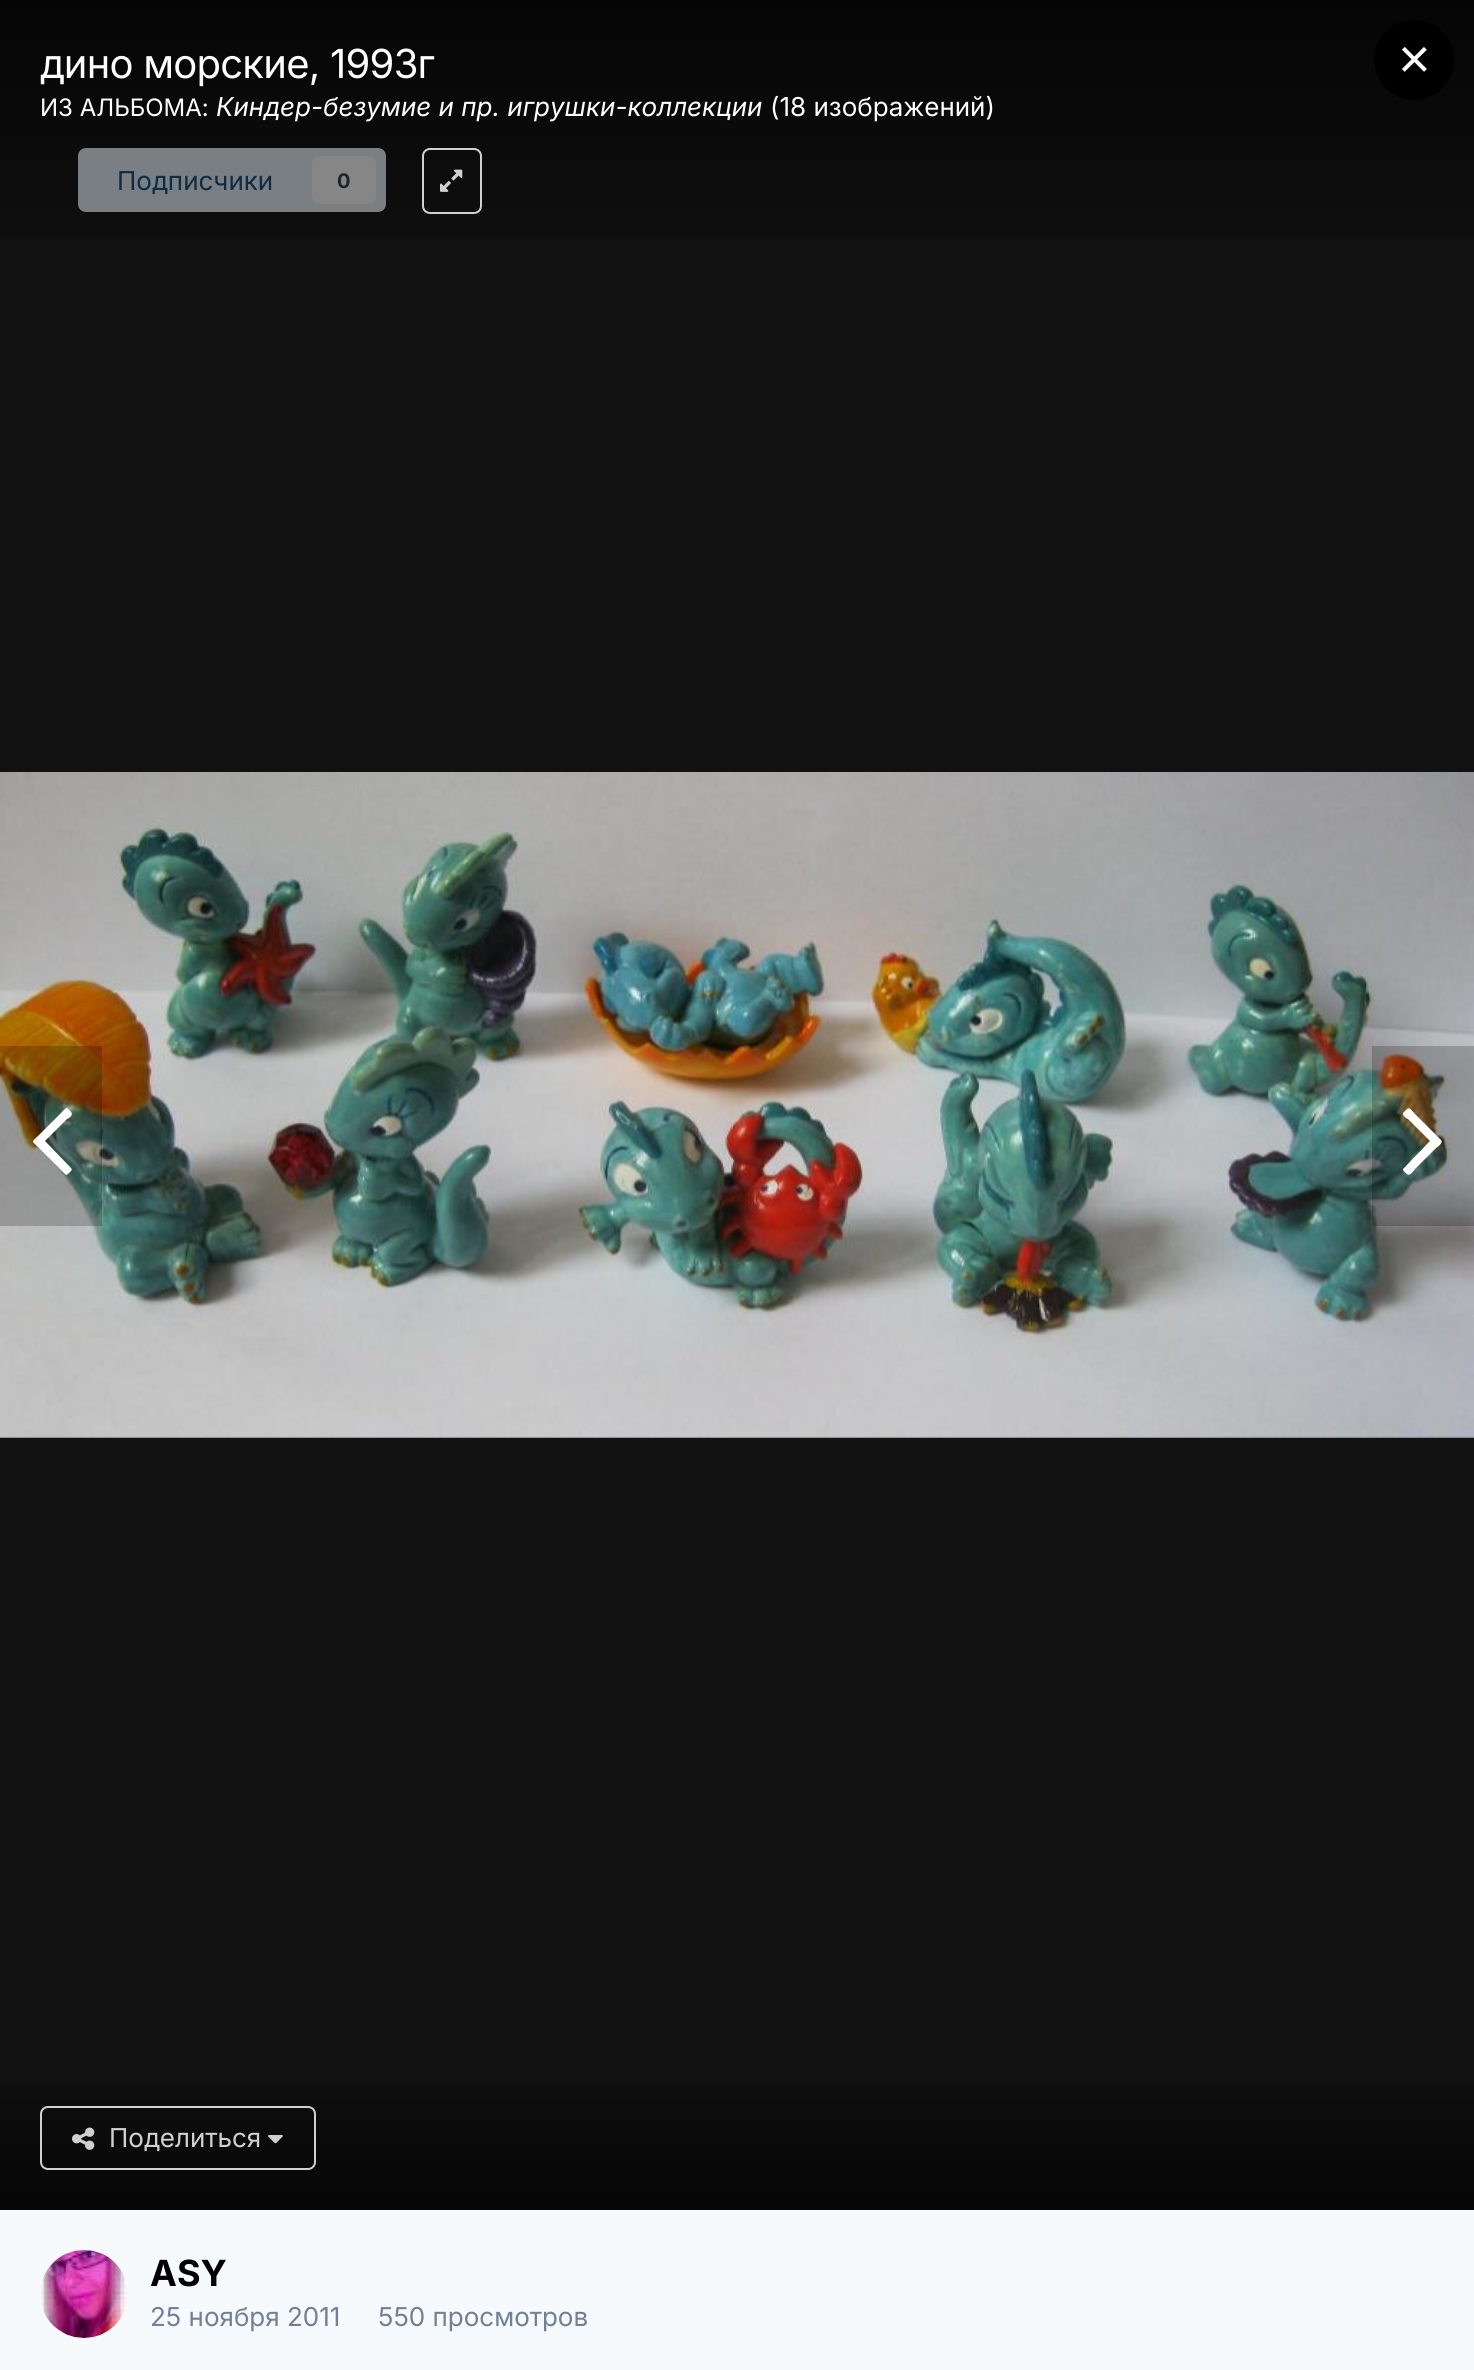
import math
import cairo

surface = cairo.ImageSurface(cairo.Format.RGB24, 1474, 2370)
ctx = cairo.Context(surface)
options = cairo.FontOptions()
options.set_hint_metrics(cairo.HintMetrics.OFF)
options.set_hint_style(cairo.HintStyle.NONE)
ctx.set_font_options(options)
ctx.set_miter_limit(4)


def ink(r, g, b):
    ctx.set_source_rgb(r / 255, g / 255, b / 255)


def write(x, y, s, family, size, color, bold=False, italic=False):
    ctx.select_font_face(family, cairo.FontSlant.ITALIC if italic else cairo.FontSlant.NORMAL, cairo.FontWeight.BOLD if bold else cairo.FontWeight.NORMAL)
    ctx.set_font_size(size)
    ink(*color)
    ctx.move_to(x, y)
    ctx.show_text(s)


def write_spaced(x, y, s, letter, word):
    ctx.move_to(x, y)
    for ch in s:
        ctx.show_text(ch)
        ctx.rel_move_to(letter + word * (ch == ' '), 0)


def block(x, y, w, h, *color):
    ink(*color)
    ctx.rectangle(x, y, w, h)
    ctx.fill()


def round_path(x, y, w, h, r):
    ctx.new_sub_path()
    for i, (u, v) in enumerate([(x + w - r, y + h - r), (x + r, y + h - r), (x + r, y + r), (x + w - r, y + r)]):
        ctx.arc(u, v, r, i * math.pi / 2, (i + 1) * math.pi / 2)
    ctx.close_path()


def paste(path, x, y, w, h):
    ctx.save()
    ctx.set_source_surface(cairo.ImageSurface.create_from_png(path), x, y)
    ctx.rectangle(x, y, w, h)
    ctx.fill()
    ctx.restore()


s1 = dict(family="Inter", size=24, color=(255, 255, 255))
s2 = dict(family="Inter", size=26, color=(255, 255, 255), italic=True)
s3 = dict(family="Inter", size=26, color=(255, 255, 255))
s4 = dict(family="Inter", size=26, color=(13, 44, 67))
s5 = dict(family="Inter", size=20, color=(33, 36, 39), bold=True)
s6 = dict(family="Inter", size=26, color=(208, 208, 208))
s7 = dict(family="Inter", size=36, color=(0, 0, 0), bold=True)
s8 = dict(family="Inter", size=26, color=(113, 128, 150))
s9 = dict(family="Liberation Sans", size=56, color=(255, 255, 255))

ink(17, 17, 17)
ctx.paint()
gradient = cairo.LinearGradient(737, 0, 737, 300)
gradient.add_color_stop_rgba(0, 0.02, 0.02, 0.02, 1)
gradient.add_color_stop_rgba(1, 0.067, 0.067, 0.067, 1)
ctx.set_source(gradient)
ctx.rectangle(0, 0, 1474, 238)
ctx.fill()
ctx.select_font_face("Inter")
ctx.set_font_size(40)
ink(255, 255, 255)
write_spaced(40, 78, "дино морские, 1993г", -0.75, 0)
write(40, 116, "ИЗ АЛЬБОМА:", **s1)
write(216, 116, "Киндер-безумие и пр. игрушки-коллекции", **s2)
write(770, 116, "(18 изображений)", **s3)
ink(122, 127, 131)
round_path(78, 148, 308, 64, 8)
ctx.fill()
write(117, 190, "Подписчики", **s4)
ink(134, 134, 134)
round_path(312, 156, 64, 48, 8)
ctx.fill()
write(337, 188, "0", **s5)
round_path(423, 149, 58, 64, 7)
ink(208, 208, 208)
ctx.stroke()
paste("pic1.png", 440, 169, 23, 23)
gradient = cairo.LinearGradient(737, 2050, 737, 2210)
gradient.add_color_stop_rgba(0, 0.067, 0.067, 0.067, 1)
gradient.add_color_stop_rgba(1, 0.02, 0.02, 0.02, 1)
ctx.set_source(gradient)
ctx.rectangle(0, 2083, 1474, 127)
ctx.fill()
round_path(41, 2107, 274, 62, 7)
ink(208, 208, 208)
ctx.stroke()
paste("pic2.png", 72, 2127, 23, 23)
write(109, 2147, "Поделиться", **s6)
paste("pic3.png", 268, 2135, 15, 9)
paste("pic4.png", 0, 772, 1474, 666)
ctx.set_source_rgba(0, 0, 0, 0.2)
ctx.rectangle(0, 1046, 102, 180)
ctx.fill()
ink(255, 255, 255)
ctx.new_path()
ctx.move_to(71, 1112)
ctx.curve_to(74, 1115, 68, 1119, 67, 1119)
ctx.line_to(45, 1141)
ctx.line_to(71, 1168)
ctx.curve_to(73, 1170, 70, 1172, 69, 1173)
ctx.curve_to(68, 1174, 66, 1176, 65, 1174)
ctx.line_to(39, 1148)
ctx.curve_to(31, 1140, 31, 1143, 39, 1135)
ctx.line_to(65, 1109)
ctx.curve_to(67, 1106, 70, 1111, 71, 1112)
ctx.close_path()
ctx.fill()
ctx.set_source_rgba(0, 0, 0, 0.2)
ctx.rectangle(1372, 1046, 102, 180)
ctx.fill()
ink(255, 255, 255)
ctx.new_path()
ctx.move_to(1441, 1140)
ctx.curve_to(1444, 1143, 1436, 1148, 1436, 1148)
ctx.line_to(1415, 1169)
ctx.curve_to(1415, 1169, 1410, 1177, 1407, 1174)
ctx.curve_to(1406, 1173, 1401, 1170, 1404, 1168)
ctx.line_to(1430, 1141)
ctx.line_to(1408, 1119)
ctx.curve_to(1407, 1119, 1402, 1115, 1403, 1113)
ctx.line_to(1406, 1110)
ctx.curve_to(1410, 1106, 1411, 1110, 1415, 1114)
ctx.close_path()
ctx.fill()
block(0, 2210, 1474, 160, 247, 250, 252)
ink(255, 255, 255)
ctx.arc(84, 2294, 44, 0, 2 * math.pi)
ctx.fill()
paste("pic5.png", 40, 2250, 88, 88)
write(150, 2286, "ASY", **s7)
write(150, 2326, "25 ноября 2011", **s8)
write(378, 2326, "550 просмотров", **s8)
ink(0, 0, 0)
ctx.new_path()
ctx.arc(1414, 60, 40, 0, 2 * math.pi)
ctx.fill()
write(1398, 78, "×", **s9)
surface.write_to_png("screenshot.png")
